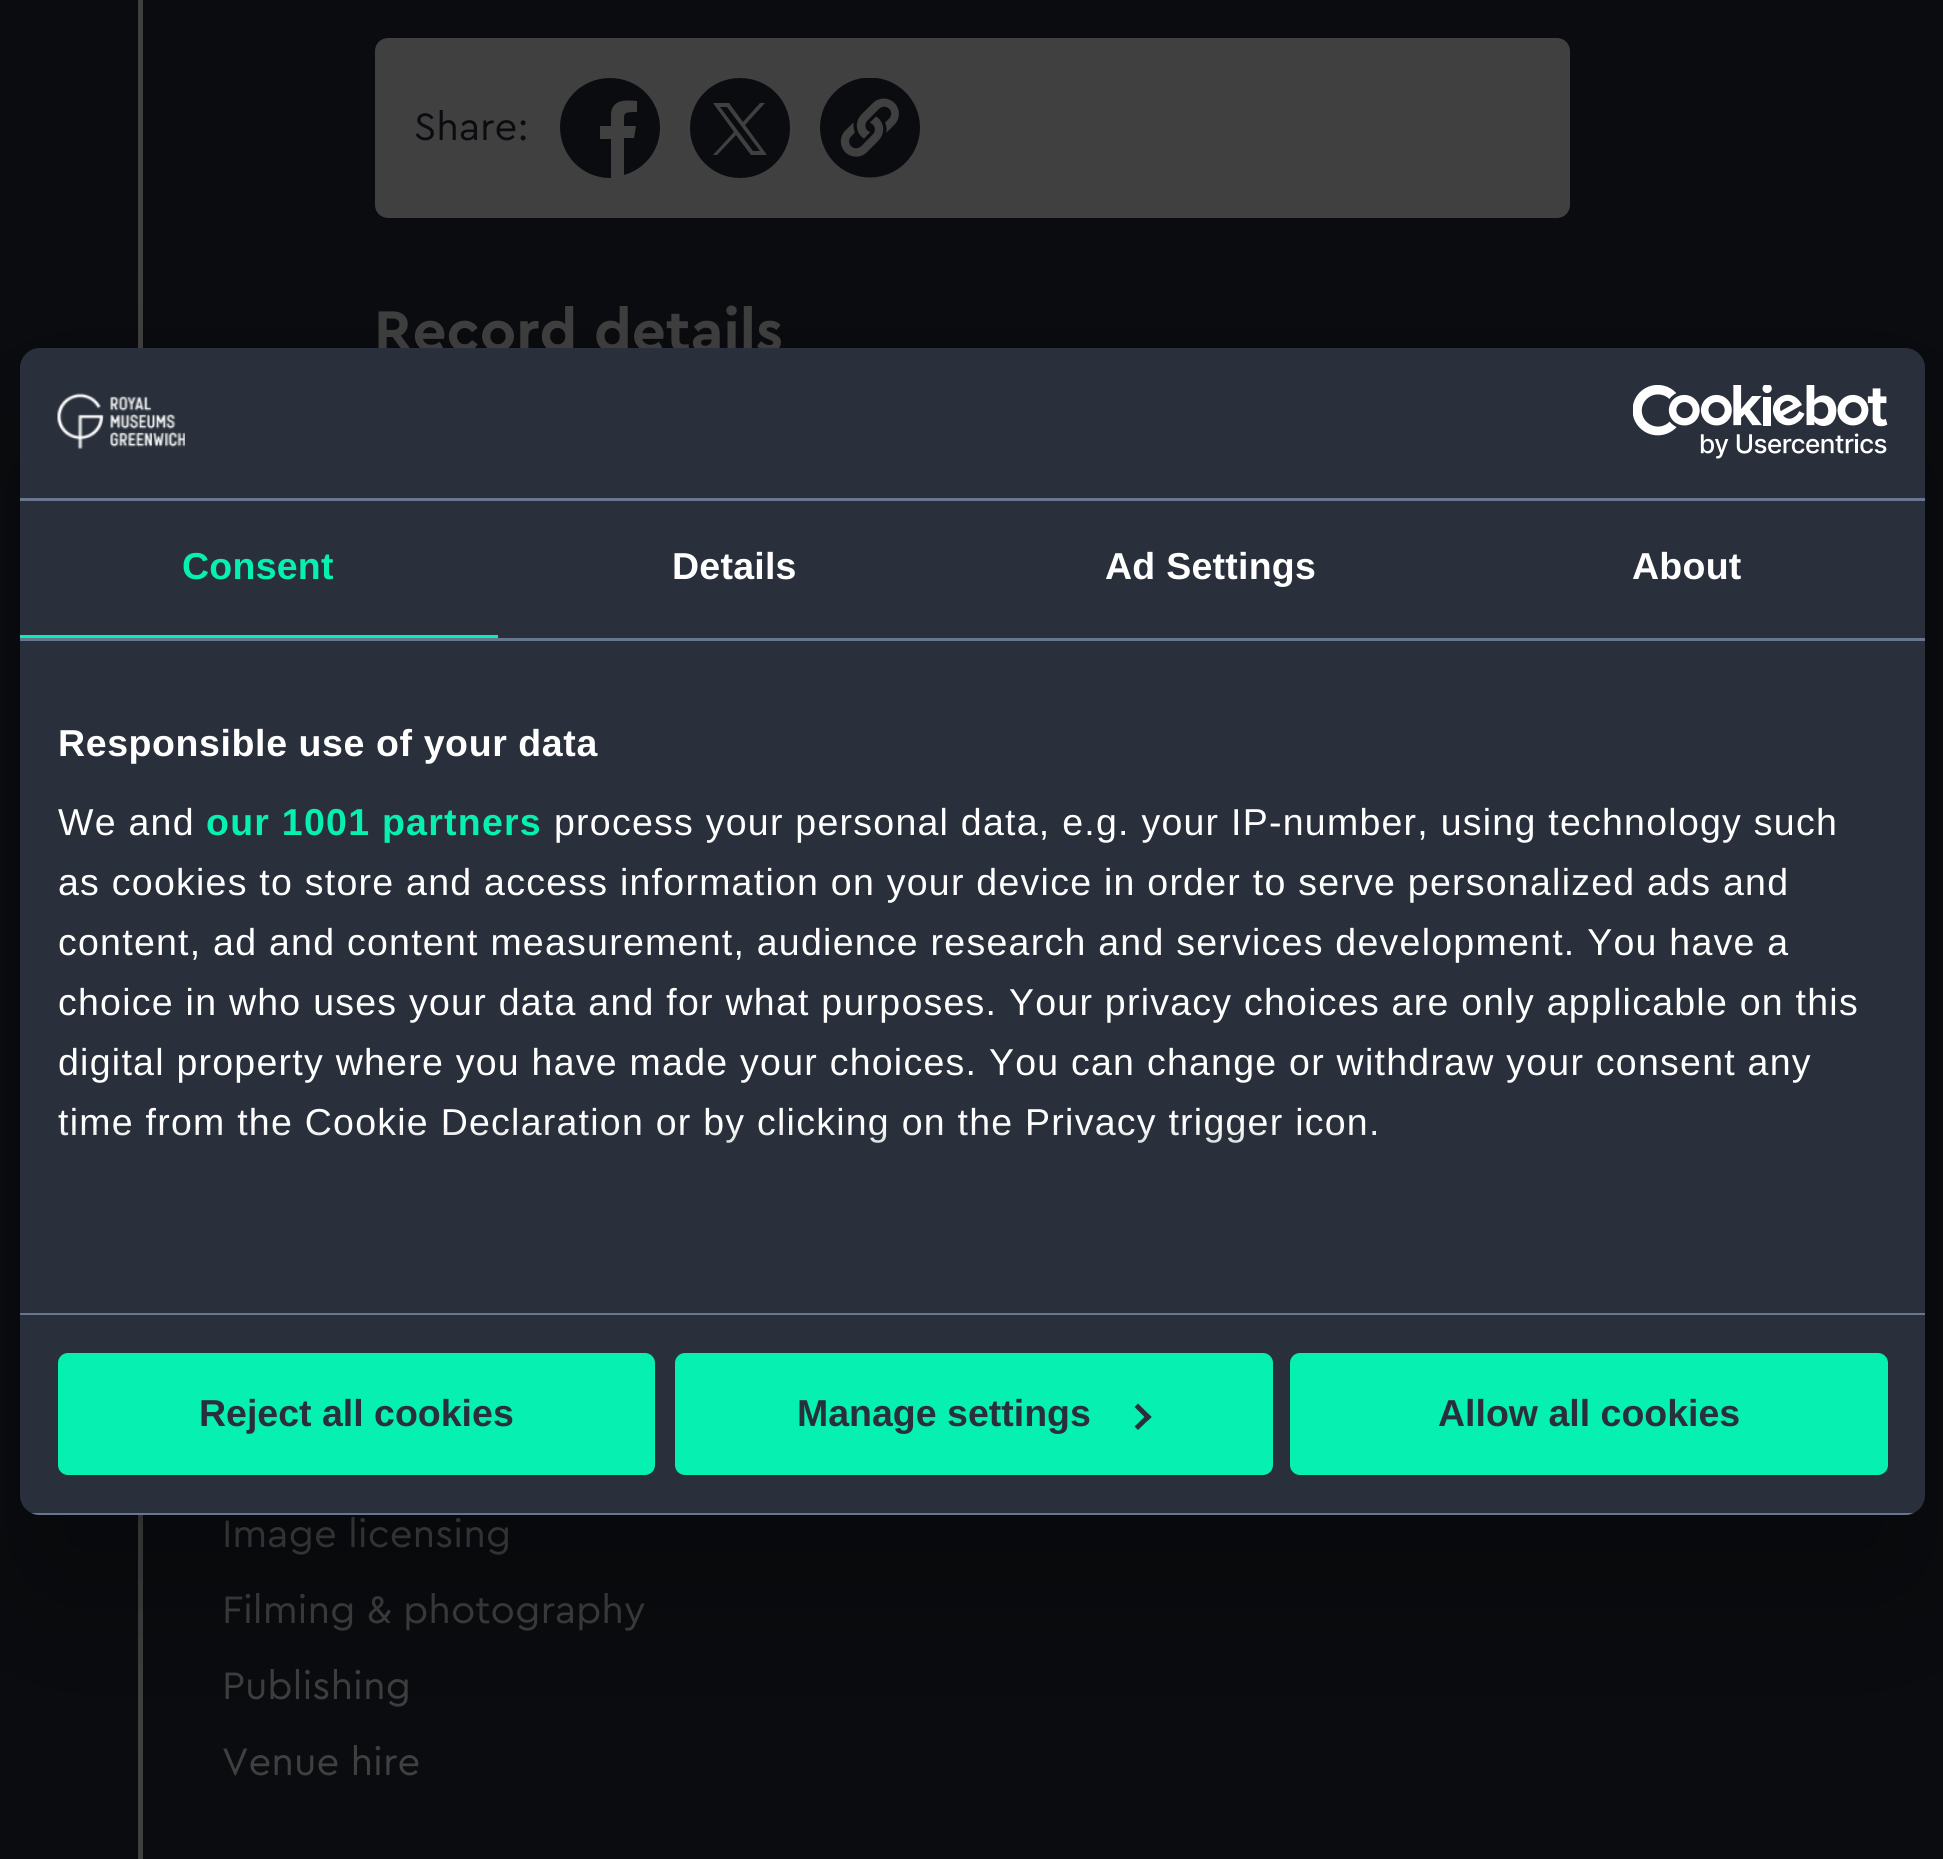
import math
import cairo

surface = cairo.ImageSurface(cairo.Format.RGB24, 1943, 1859)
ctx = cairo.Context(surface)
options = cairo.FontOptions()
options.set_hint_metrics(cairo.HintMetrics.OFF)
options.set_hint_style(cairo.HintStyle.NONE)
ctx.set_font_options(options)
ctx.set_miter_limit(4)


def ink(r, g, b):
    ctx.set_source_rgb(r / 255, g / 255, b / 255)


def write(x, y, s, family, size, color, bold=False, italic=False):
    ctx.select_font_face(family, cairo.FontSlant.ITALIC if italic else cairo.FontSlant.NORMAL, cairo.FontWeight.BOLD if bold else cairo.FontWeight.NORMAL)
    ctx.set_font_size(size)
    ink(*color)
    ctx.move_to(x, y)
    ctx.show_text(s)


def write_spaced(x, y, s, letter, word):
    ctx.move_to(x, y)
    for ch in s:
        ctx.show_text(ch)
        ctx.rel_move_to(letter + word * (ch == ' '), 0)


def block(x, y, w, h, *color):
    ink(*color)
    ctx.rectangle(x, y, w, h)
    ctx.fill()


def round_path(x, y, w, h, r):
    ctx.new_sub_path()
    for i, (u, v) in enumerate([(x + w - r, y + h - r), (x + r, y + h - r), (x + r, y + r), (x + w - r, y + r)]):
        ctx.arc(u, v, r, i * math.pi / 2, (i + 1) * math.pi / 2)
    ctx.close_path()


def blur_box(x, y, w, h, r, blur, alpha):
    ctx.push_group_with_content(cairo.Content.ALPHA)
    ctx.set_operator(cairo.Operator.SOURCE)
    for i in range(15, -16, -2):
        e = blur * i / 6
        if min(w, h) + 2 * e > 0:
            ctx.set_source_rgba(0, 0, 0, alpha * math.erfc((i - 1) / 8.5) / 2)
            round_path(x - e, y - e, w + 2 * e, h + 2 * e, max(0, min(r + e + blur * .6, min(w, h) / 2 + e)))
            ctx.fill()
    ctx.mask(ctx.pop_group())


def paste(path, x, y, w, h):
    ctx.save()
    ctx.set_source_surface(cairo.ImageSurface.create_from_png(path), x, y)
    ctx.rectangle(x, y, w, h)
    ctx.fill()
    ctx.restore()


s1 = dict(family="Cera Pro", size=40, color=(10, 12, 15))
s2 = dict(family="Cera Pro", size=60, color=(64, 64, 64), bold=True)
s3 = dict(family="Cera Pro", size=40, color=(64, 64, 64))
s4 = dict(family="Liberation Sans", size=37.5, color=(41, 48, 59), bold=True)

ink(10, 12, 15)
ctx.paint()
block(138, 0, 5, 348, 64, 64, 64)
round_path(375, 38, 1195, 180, 13)
ctx.fill()
write(414, 140, "Share:", **s1)
ctx.new_path()
ctx.move_to(660, 128)
ctx.curve_to(660, 100, 638, 78, 610, 78)
ctx.curve_to(582, 78, 560, 100, 560, 127)
ctx.curve_to(560, 155, 582, 178, 610, 178)
ctx.line_to(611, 178)
ctx.line_to(611, 139)
ctx.line_to(600, 139)
ctx.line_to(600, 126)
ctx.line_to(611, 126)
ctx.line_to(611, 113)
ctx.curve_to(613, 99, 626, 100, 637, 101)
ctx.line_to(637, 112)
ctx.curve_to(622, 112, 624, 113, 624, 126)
ctx.line_to(636, 126)
ctx.line_to(634, 138)
ctx.line_to(624, 138)
ctx.line_to(624, 175)
ctx.curve_to(645, 169, 660, 150, 660, 128)
ctx.close_path()
ctx.fill()
ctx.set_fill_rule(cairo.FillRule.EVEN_ODD)
ctx.new_path()
ctx.move_to(790, 128)
ctx.curve_to(790, 155, 768, 178, 740, 178)
ctx.curve_to(712, 178, 690, 155, 690, 128)
ctx.curve_to(690, 100, 712, 78, 740, 78)
ctx.curve_to(768, 78, 790, 100, 790, 128)
ctx.close_path()
ctx.move_to(734, 132)
ctx.line_to(713, 103)
ctx.line_to(729, 103)
ctx.line_to(743, 122)
ctx.line_to(760, 103)
ctx.line_to(765, 103)
ctx.line_to(745, 125)
ctx.line_to(767, 155)
ctx.line_to(751, 155)
ctx.line_to(736, 135)
ctx.line_to(717, 155)
ctx.line_to(713, 155)
ctx.close_path()
ctx.move_to(727, 107)
ctx.line_to(720, 107)
ctx.line_to(753, 151)
ctx.line_to(760, 151)
ctx.close_path()
ctx.fill()
paste("pic1.png", 820, 78, 100, 100)
write(374, 351, "Record details", **s2)
block(138, 1515, 5, 344, 64, 64, 64)
write(222, 1547, "Image licensing", **s3)
write(222, 1623, "Filming & photography", **s3)
write(222, 1699, "Publishing", **s3)
write(222, 1775, "Venue hire", **s3)
ctx.save()
ctx.new_path()
ctx.move_to(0, 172)
ctx.line_to(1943, 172)
ctx.line_to(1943, 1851)
ctx.line_to(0, 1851)
ctx.close_path()
ctx.move_to(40, 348)
ctx.line_to(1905, 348)
ctx.curve_to(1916, 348, 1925, 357, 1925, 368)
ctx.line_to(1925, 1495)
ctx.curve_to(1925, 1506, 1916, 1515, 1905, 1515)
ctx.line_to(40, 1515)
ctx.curve_to(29, 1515, 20, 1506, 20, 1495)
ctx.line_to(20, 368)
ctx.curve_to(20, 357, 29, 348, 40, 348)
ctx.close_path()
ctx.clip()
ink(0, 0, 0)
blur_box(20, 428, 1905, 1167, 20, 85, 0.3)
ctx.restore()
ink(41, 48, 59)
round_path(20, 348, 1905, 1167, 20)
ctx.fill()
block(20, 498, 1905, 3, 104, 118, 146)
paste("pic2.png", 57, 393, 128, 57)
paste("pic3.png", 1633, 385, 255, 74)
block(20, 638, 1905, 3, 104, 118, 146)
block(20, 635, 478, 3, 6, 240, 178)
ctx.select_font_face("Liberation Sans", cairo.FontSlant.NORMAL, cairo.FontWeight.BOLD)
ctx.set_font_size(37.5)
write_spaced(182, 579, "Consent", 0.25, 0)
ink(255, 255, 255)
write_spaced(672, 579, "Details", 0.25, 0)
write_spaced(1105, 579, "Ad Settings", 0.25, 0)
write_spaced(1632, 579, "About", 0.25, 0)
block(20, 1313, 1905, 2, 104, 118, 146)
ink(255, 255, 255)
write_spaced(58, 756, "Responsible use of your data", 0.6, 0)
ctx.select_font_face("Liberation Sans")
write_spaced(58, 835, "We and", 1.25, 0)
ctx.select_font_face("Liberation Sans", cairo.FontSlant.NORMAL, cairo.FontWeight.BOLD)
ink(6, 240, 178)
write_spaced(206, 835, "our 1001 partners", 1.25, 0)
ctx.select_font_face("Liberation Sans")
ink(255, 255, 255)
write_spaced(554, 835, "process your personal data, e.g. your IP-number, using technology such", 1.25, 0)
write_spaced(58, 895, "as cookies to store and access information on your device in order to serve personalized ads and", 1.25, 0)
write_spaced(58, 955, "content, ad and content measurement, audience research and services development. You have a", 1.25, 0)
write_spaced(58, 1015, "choice in who uses your data and for what purposes. Your privacy choices are only applicable on this", 1.25, 0)
write_spaced(58, 1075, "digital property where you have made your choices. You can change or withdraw your consent any", 1.25, 0)
write_spaced(58, 1135, "time from the Cookie Declaration or by clicking on the Privacy trigger icon.", 1.25, 0)
gradient = cairo.LinearGradient(956, 1311, 956, 1124)
gradient.add_color_stop_rgba(0, 0.161, 0.188, 0.231, 1)
gradient.add_color_stop_rgba(0.5, 0.161, 0.188, 0.231, 0.8)
gradient.add_color_stop_rgba(1, 0.161, 0.188, 0.231, 0)
ctx.set_source(gradient)
ctx.rectangle(60, 1127, 1316, 16)
ctx.fill()
ctx.save()
ctx.set_fill_rule(cairo.FillRule.WINDING)
round_path(20, 348, 1905, 1167, 20)
ctx.clip()
block(31, 1513, 1883, 2, 104, 118, 146)
ctx.restore()
ink(6, 240, 178)
round_path(60.5, 1355.5, 592, 117, 7.5)
ctx.fill_preserve()
ctx.set_line_width(5)
ctx.stroke()
write(199, 1426, "Reject all cookies", **s4)
ink(6, 240, 178)
round_path(677.5, 1355.5, 593, 117, 7.5)
ctx.fill_preserve()
ctx.stroke()
write(797, 1426, "Manage settings", **s4)
ctx.set_fill_rule(cairo.FillRule.WINDING)
ctx.new_path()
ctx.move_to(1138, 1403.5)
ctx.line_to(1151.5, 1417)
ctx.line_to(1148, 1420.5)
ctx.line_to(1134.5, 1407)
ctx.close_path()
ctx.fill()
ctx.new_path()
ctx.move_to(1148, 1413.5)
ctx.line_to(1151.5, 1417)
ctx.line_to(1138, 1430)
ctx.line_to(1134.5, 1426.5)
ctx.close_path()
ctx.fill()
ink(6, 240, 178)
round_path(1292.5, 1355.5, 593, 117, 7.5)
ctx.fill_preserve()
ctx.stroke()
write(1438, 1426, "Allow all cookies", **s4)
surface.write_to_png("screenshot.png")
